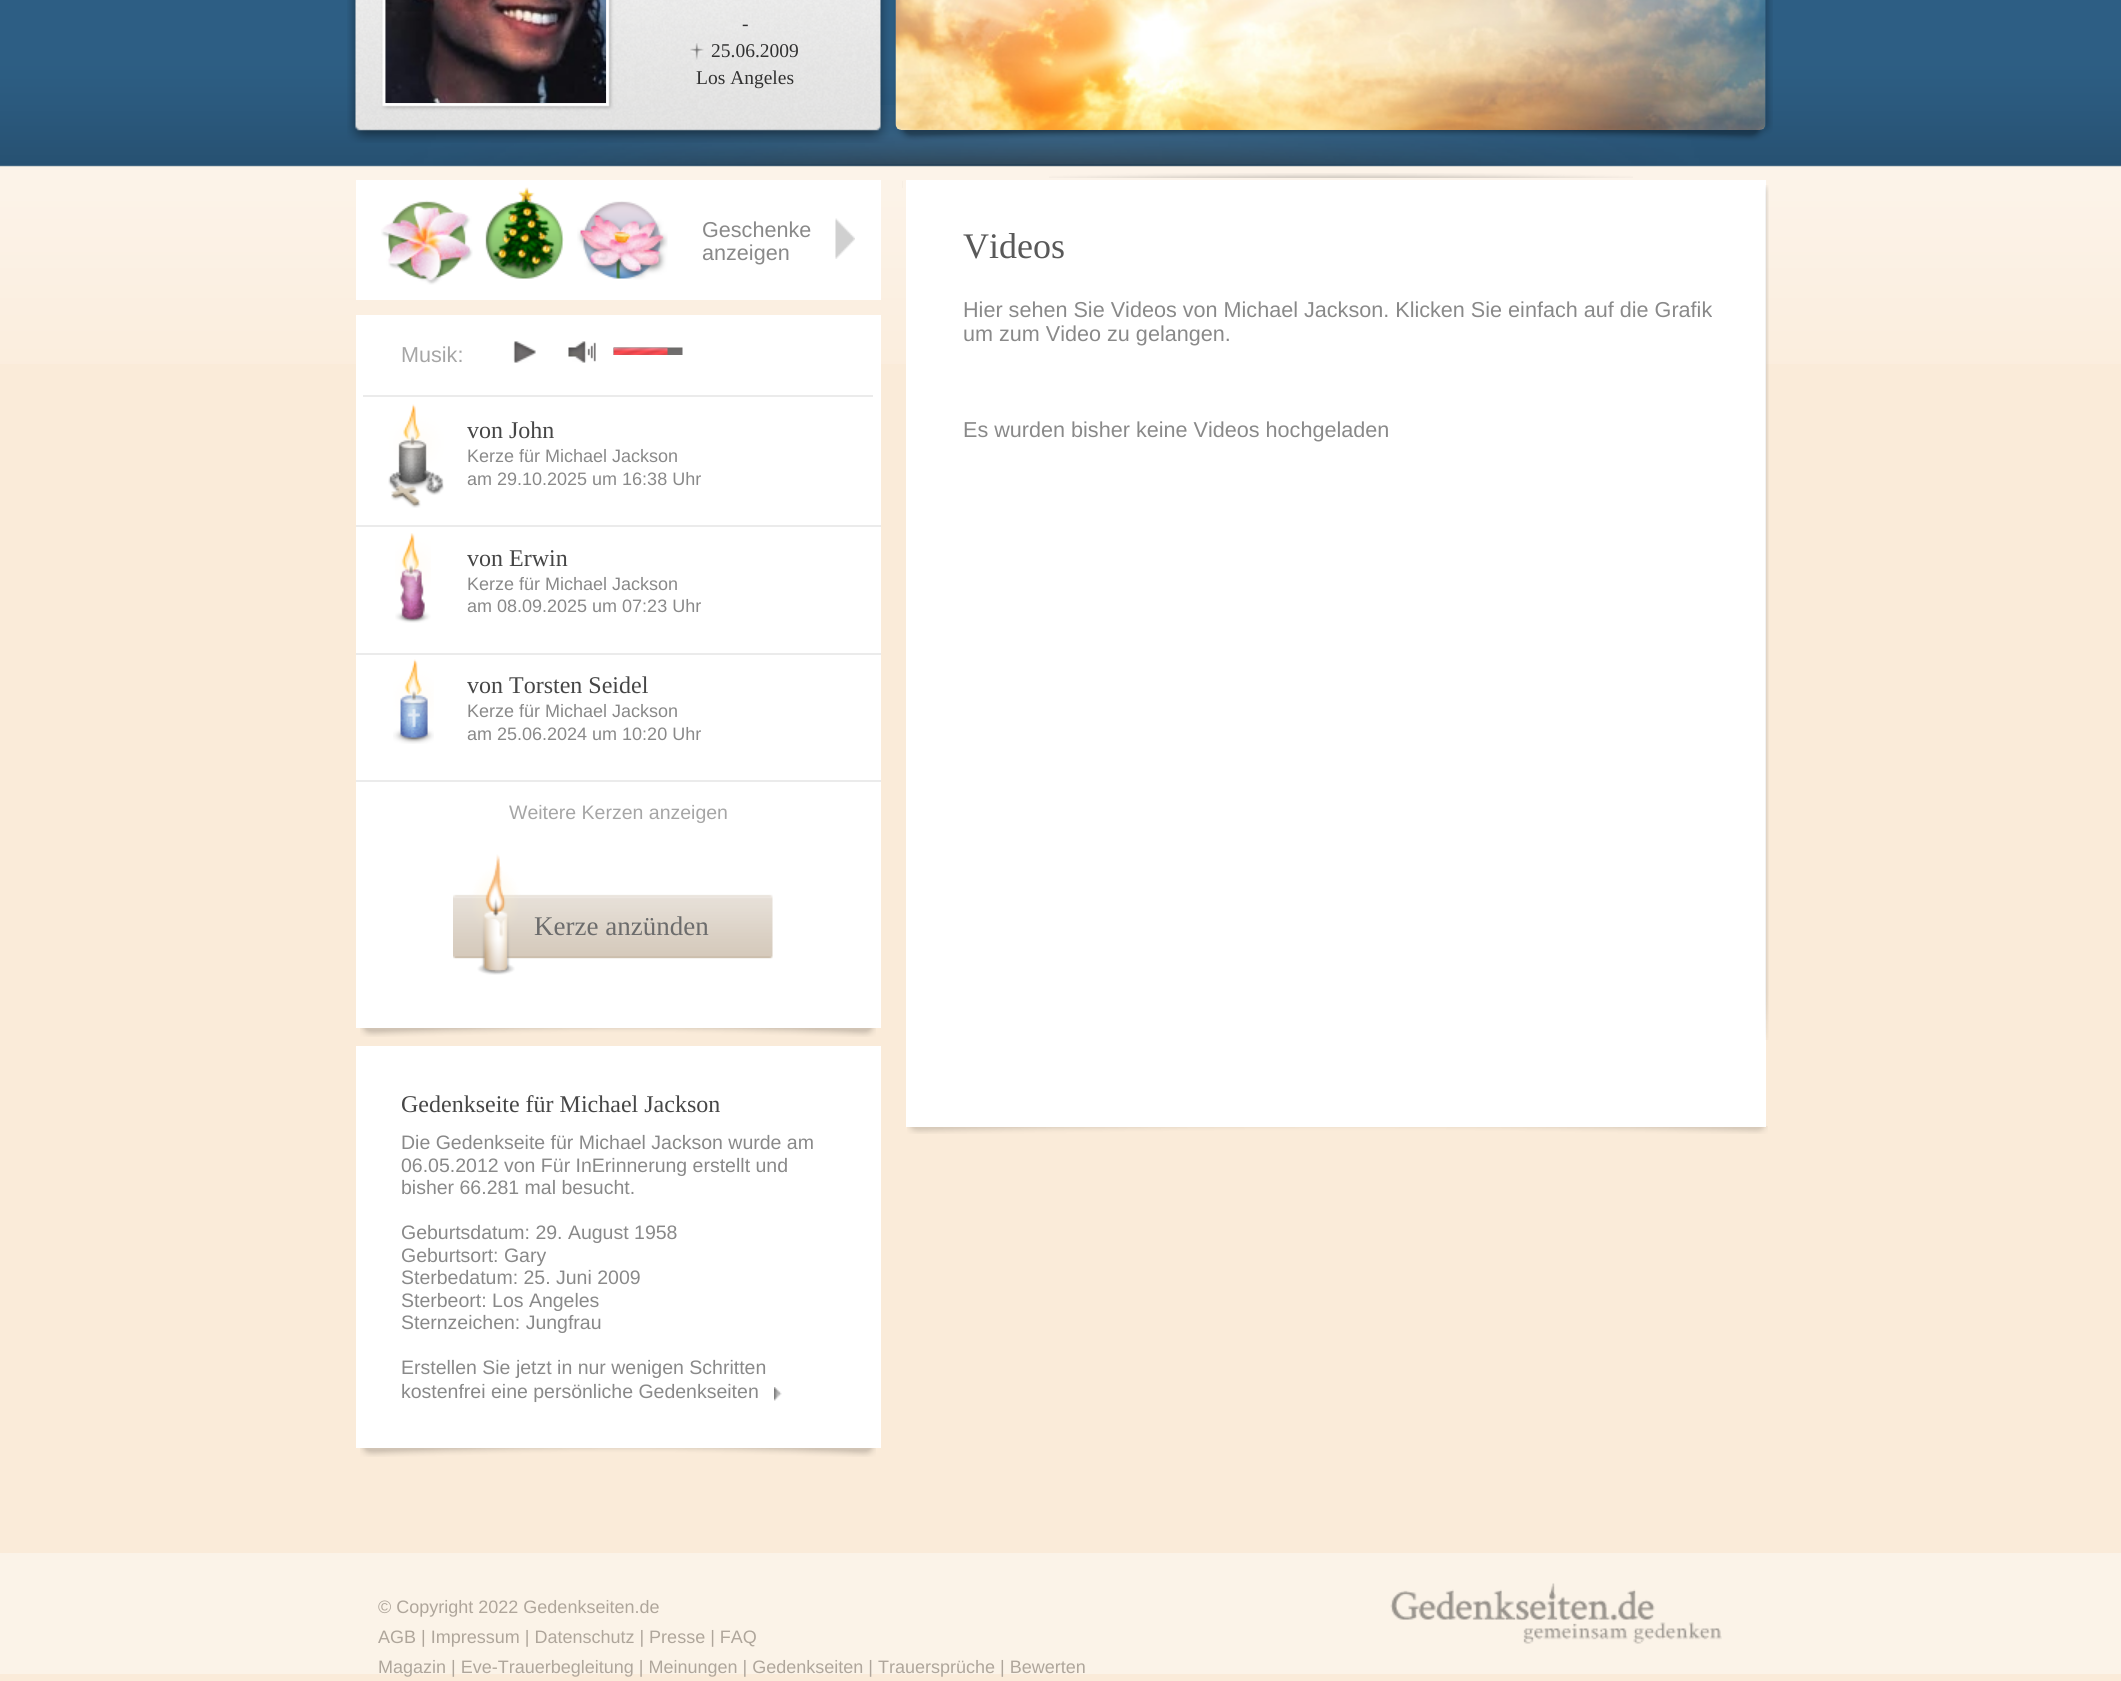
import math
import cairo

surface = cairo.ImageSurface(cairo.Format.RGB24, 2121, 1681)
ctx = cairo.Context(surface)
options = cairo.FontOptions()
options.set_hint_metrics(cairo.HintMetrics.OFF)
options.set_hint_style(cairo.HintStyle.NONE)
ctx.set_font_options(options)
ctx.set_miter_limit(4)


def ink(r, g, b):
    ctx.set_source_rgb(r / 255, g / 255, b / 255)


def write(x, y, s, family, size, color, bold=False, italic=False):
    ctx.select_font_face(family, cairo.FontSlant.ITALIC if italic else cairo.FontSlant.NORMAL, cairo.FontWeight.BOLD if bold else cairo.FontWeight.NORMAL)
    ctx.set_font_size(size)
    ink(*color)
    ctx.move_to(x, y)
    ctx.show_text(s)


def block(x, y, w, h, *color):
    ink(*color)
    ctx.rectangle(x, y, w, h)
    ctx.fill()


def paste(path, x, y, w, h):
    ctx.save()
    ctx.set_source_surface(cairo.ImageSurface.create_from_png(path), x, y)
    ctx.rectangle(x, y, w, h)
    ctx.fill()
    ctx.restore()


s1 = dict(family="Liberation Serif", size=19.5, color=(49, 49, 49))
s2 = dict(family="Liberation Sans", size=21.6, color=(166, 166, 166))
s3 = dict(family="Liberation Serif", size=24, color=(70, 70, 70))
s4 = dict(family="Liberation Sans", size=18, color=(137, 137, 137))
s5 = dict(family="Liberation Sans", size=19.5, color=(166, 166, 166))
s6 = dict(family="Liberation Serif", size=27, color=(108, 108, 108))
s7 = dict(family="Liberation Sans", size=21.6, color=(137, 137, 137))
s8 = dict(family="Liberation Serif", size=36, color=(89, 89, 89))
s9 = dict(family="Liberation Sans", size=19.5, color=(137, 137, 137))
s10 = dict(family="Liberation Sans", size=18, color=(175, 166, 155))

ink(250, 235, 217)
ctx.paint()
paste("pic1.png", 0, 0, 2121, 364)
paste("pic6.png", 0, 105, 2121, 62)
paste("pic2.png", 347, 0, 1426, 143)
paste("pic3.png", 385, 0, 221, 103)
write(742, 30, "-", **s1)
paste("pic4.png", 690, 43, 14, 17)
write(711, 57, "25.06.2009", **s1)
write(696, 84, "Los Angeles", **s1)
paste("pic5.png", 895, 0, 871, 130)
block(356, 315, 525, 713, 255, 255, 255)
block(363, 395, 510, 2, 235, 235, 235)
write(401, 362, "Musik:", **s2)
paste("pic7.png", 513, 341, 23, 22)
paste("pic8.png", 568, 341, 28, 22)
paste("pic9.png", 613, 347, 70, 8)
paste("pic10.png", 613, 347, 55, 8)
block(356, 525, 525, 2, 235, 235, 235)
paste("pic11.png", 388, 404, 56, 104)
write(467, 438, "von John", **s3)
write(467, 462, "Kerze für Michael Jackson", **s4)
write(467, 485, "am 29.10.2025 um 16:38 Uhr", **s4)
block(356, 653, 525, 2, 235, 235, 235)
paste("pic12.png", 395, 533, 36, 90)
write(467, 566, "von Erwin", **s3)
write(467, 590, "Kerze für Michael Jackson", **s4)
write(467, 612, "am 08.09.2025 um 07:23 Uhr", **s4)
block(356, 780, 525, 2, 235, 235, 235)
paste("pic13.png", 393, 659, 41, 85)
write(467, 693, "von Torsten Seidel", **s3)
write(467, 717, "Kerze für Michael Jackson", **s4)
write(467, 740, "am 25.06.2024 um 10:20 Uhr", **s4)
write(509, 819, "Weitere Kerzen anzeigen", **s5)
paste("pic14.png", 453, 854, 320, 121)
write(534, 935, "Kerze anzünden", **s6)
paste("pic15.png", 360, 1028, 516, 9)
block(356, 180, 525, 120, 255, 255, 255)
paste("pic16.png", 381, 200, 92, 85)
paste("pic17.png", 485, 187, 79, 92)
paste("pic18.png", 577, 201, 91, 79)
paste("pic19.png", 835, 218, 20, 41)
write(702, 237, "Geschenke", **s7)
write(702, 260, "anzeigen", **s7)
paste("pic22.png", 907, 1126, 861, 8)
block(906, 180, 860, 947, 255, 255, 255)
paste("pic20.png", 1049, 173, 584, 5)
block(902, 181, 1, 7, 247, 238, 227)
write(963, 258, "Videos", **s8)
write(963, 317, "Hier sehen Sie Videos von Michael Jackson. Klicken Sie einfach auf die Grafik", **s7)
write(963, 341, "um zum Video zu gelangen.", **s7)
paste("pic21.png", 1765, 185, 4, 855)
write(963, 437, "Es wurden bisher keine Videos hochgeladen", **s7)
block(356, 1046, 525, 402, 255, 255, 255)
write(401, 1112, "Gedenkseite für Michael Jackson", **s3)
write(401, 1149, "Die Gedenkseite für Michael Jackson wurde am", **s9)
write(401, 1172, "06.05.2012 von Für InErinnerung erstellt und", **s9)
write(401, 1194, "bisher 66.281 mal besucht.", **s9)
write(401, 1239, "Geburtsdatum: 29. August 1958", **s9)
write(401, 1262, "Geburtsort: Gary", **s9)
write(401, 1284, "Sterbedatum: 25. Juni 2009", **s9)
write(401, 1307, "Sterbeort: Los Angeles", **s9)
write(401, 1329, "Sternzeichen: Jungfrau", **s9)
write(401, 1374, "Erstellen Sie jetzt in nur wenigen Schritten", **s9)
write(401, 1398, "kostenfrei eine persönliche Gedenkseiten", **s9)
paste("pic23.png", 774, 1387, 8, 14)
paste("pic15.png", 360, 1448, 516, 9)
block(0, 1553, 2121, 121, 251, 243, 232)
write(378, 1613, "© Copyright 2022 Gedenkseiten.de", **s10)
paste("pic24.png", 1390, 1583, 332, 61)
write(378, 1643, "AGB | Impressum | Datenschutz | Presse | FAQ", **s10)
write(378, 1673, "Magazin | Eve-Trauerbegleitung | Meinungen | Gedenkseiten | Trauersprüche | Bewerten", **s10)
surface.write_to_png("screenshot.png")
